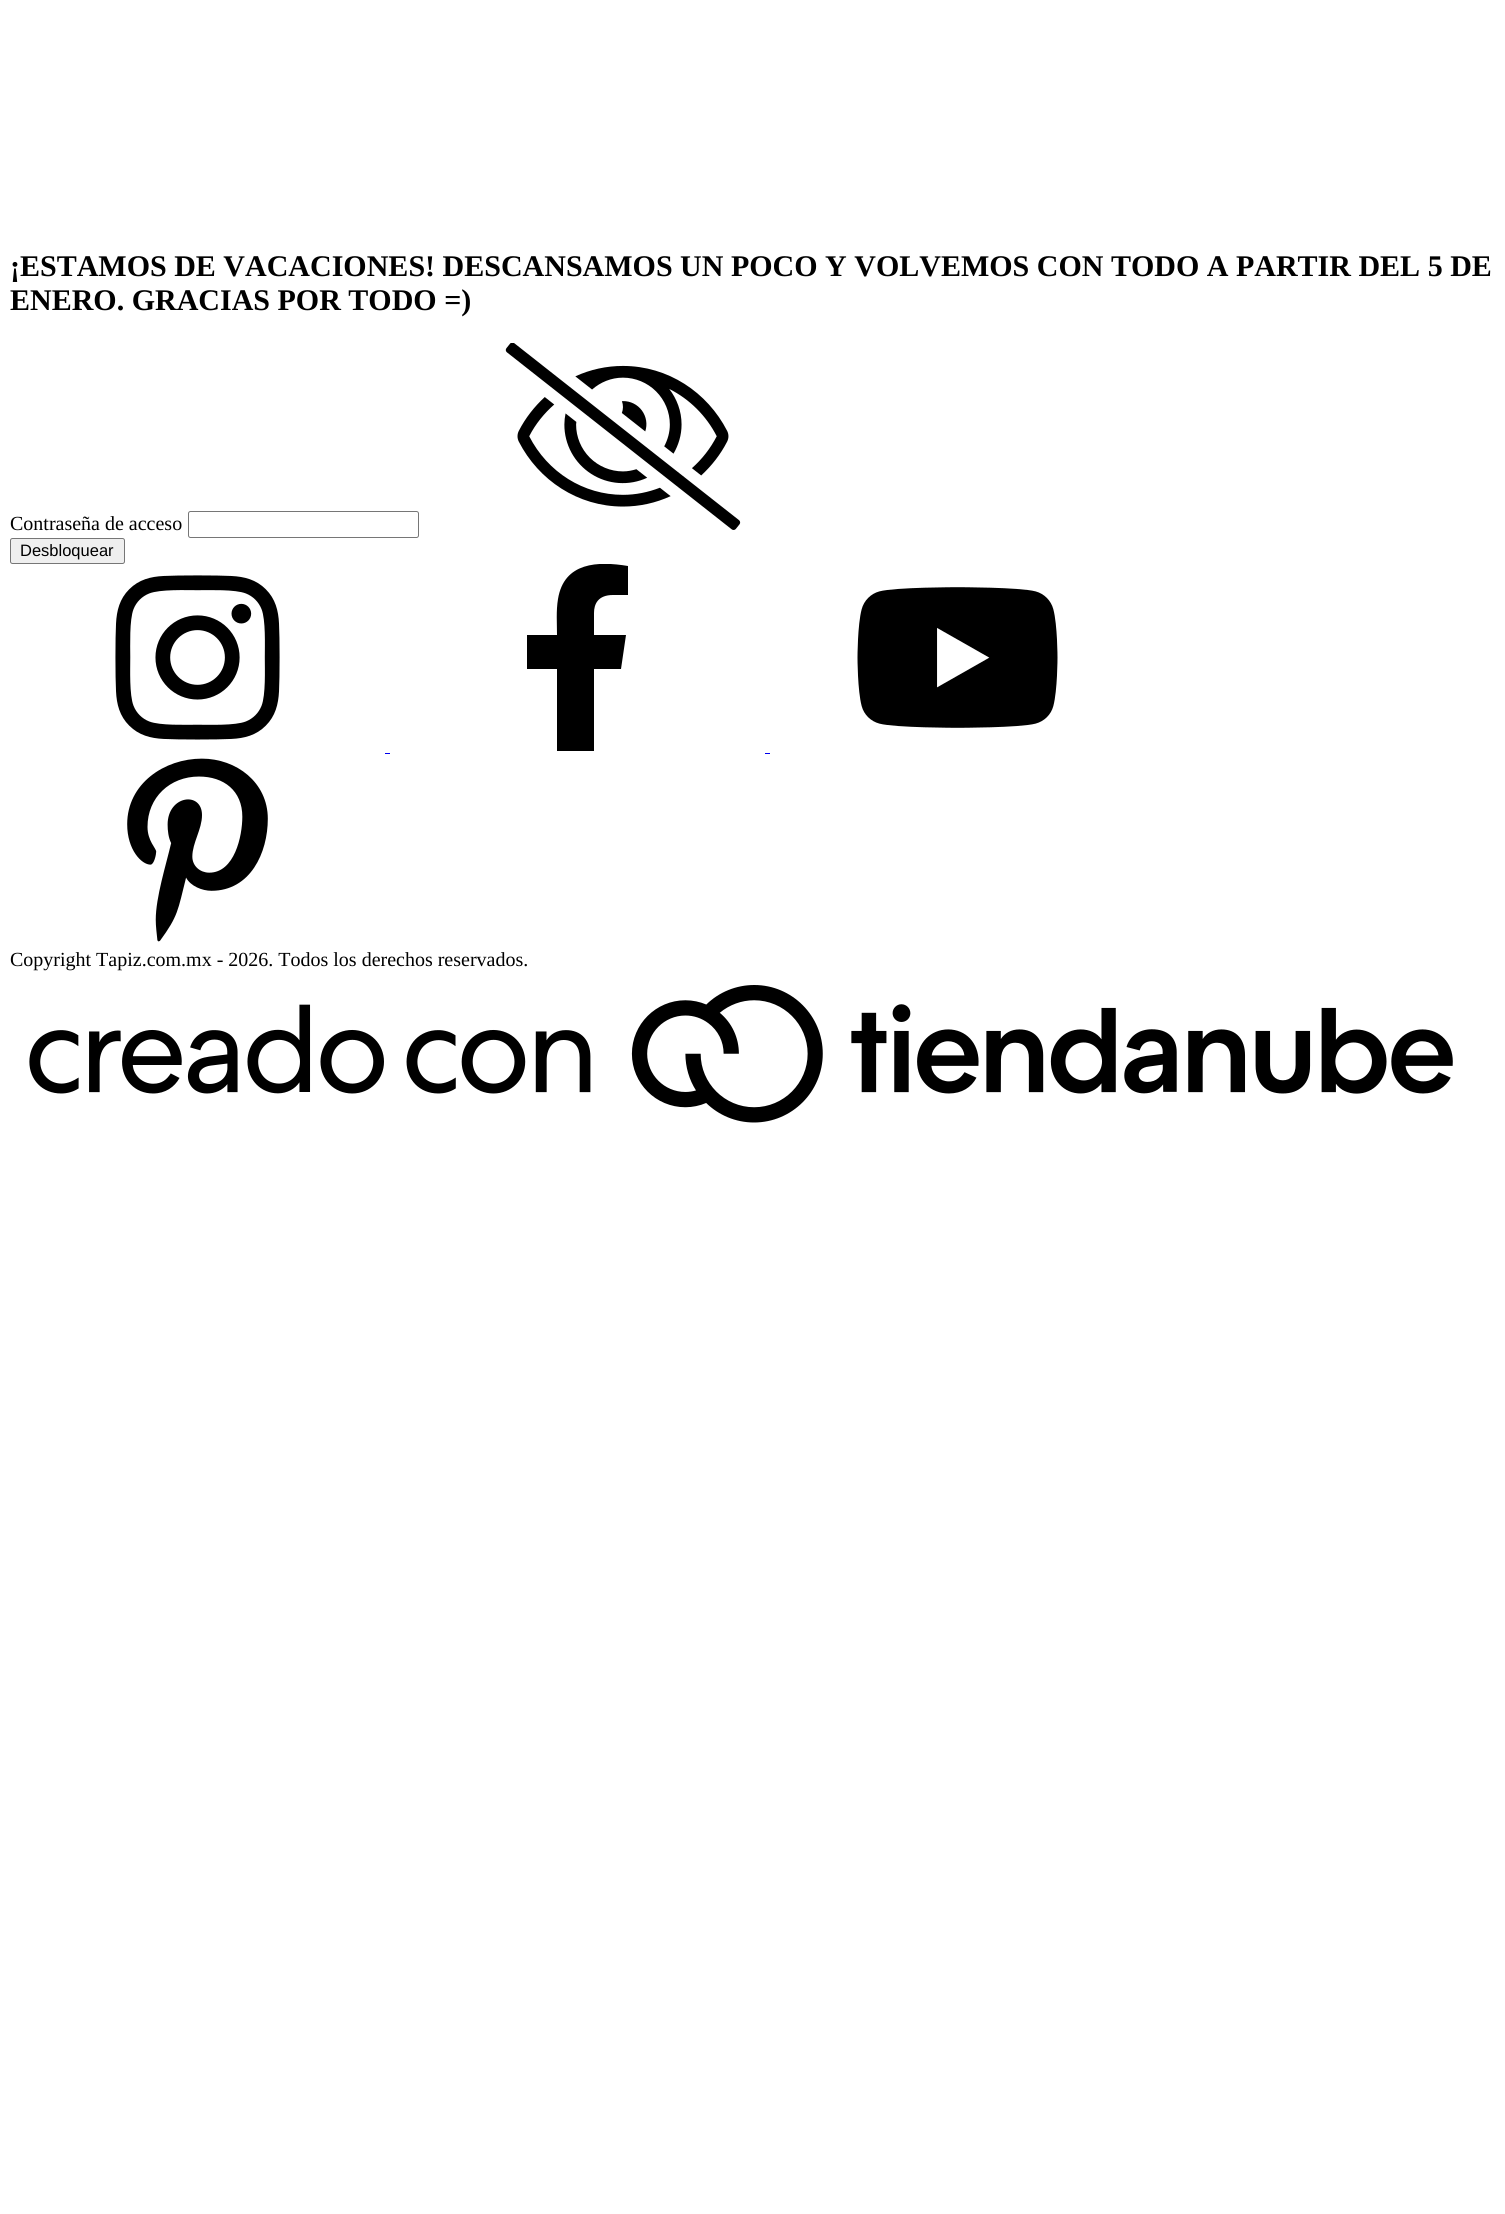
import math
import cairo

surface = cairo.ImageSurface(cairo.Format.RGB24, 1505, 2214)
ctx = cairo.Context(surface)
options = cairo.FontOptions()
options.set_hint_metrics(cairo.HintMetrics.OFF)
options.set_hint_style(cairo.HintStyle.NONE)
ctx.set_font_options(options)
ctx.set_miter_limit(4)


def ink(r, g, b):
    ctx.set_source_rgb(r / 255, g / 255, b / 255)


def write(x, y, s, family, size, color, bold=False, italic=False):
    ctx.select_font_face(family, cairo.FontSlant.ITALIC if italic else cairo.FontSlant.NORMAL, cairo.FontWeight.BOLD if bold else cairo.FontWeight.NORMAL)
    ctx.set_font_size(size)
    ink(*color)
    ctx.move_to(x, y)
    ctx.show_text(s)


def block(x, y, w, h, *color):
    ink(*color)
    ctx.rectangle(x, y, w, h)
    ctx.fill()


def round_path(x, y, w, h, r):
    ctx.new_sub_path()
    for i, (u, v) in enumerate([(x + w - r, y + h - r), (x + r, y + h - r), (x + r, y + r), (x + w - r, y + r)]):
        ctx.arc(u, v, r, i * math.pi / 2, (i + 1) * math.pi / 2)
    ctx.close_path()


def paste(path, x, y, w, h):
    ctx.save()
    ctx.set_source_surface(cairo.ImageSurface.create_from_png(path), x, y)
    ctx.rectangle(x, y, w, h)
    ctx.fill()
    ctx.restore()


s1 = dict(family="Liberation Serif", size=30, color=(0, 0, 0), bold=True)
s2 = dict(family="Liberation Serif", size=20, color=(0, 0, 0))
s3 = dict(family="Liberation Sans", size=16.5, color=(0, 0, 0))

ink(255, 255, 255)
ctx.paint()
write(10, 276, "¡ESTAMOS DE VACACIONES! DESCANSAMOS UN POCO Y VOLVEMOS CON TODO A PARTIR DEL 5 DE", **s1)
write(10, 310, "ENERO. GRACIAS POR TODO =)", **s1)
write(10, 530, "Contraseña de acceso", **s2)
round_path(188.5, 511.5, 230, 26, 2)
ink(118, 118, 118)
ctx.set_line_width(1)
ctx.stroke()
paste("pic1.png", 505, 343, 236, 187)
ink(239, 239, 239)
round_path(10.5, 538.5, 114, 25, 2)
ctx.fill_preserve()
ink(118, 118, 118)
ctx.stroke()
write(20, 556, "Desbloquear", **s3)
paste("pic2.png", 115, 575, 165, 165)
ctx.save()
ctx.rectangle(390, 564, 375, 187)
ctx.clip()
ctx.new_path()
ctx.move_to(621, 669)
ctx.line_to(626, 635)
ctx.line_to(594, 635)
ctx.line_to(594, 613)
ctx.curve_to(594, 604, 598, 595, 613, 595)
ctx.line_to(628, 595)
ctx.line_to(628, 566)
ctx.curve_to(598, 561, 564, 562, 558, 599)
ctx.curve_to(556, 611, 557, 623, 557, 635)
ctx.line_to(527, 635)
ctx.line_to(527, 669)
ctx.line_to(557, 669)
ctx.line_to(557, 751)
ctx.line_to(594, 751)
ctx.line_to(594, 669)
ctx.close_path()
ctx.fill()
ctx.restore()
paste("pic3.png", 857, 587, 201, 141)
block(385, 753, 5, 1, 0, 0, 238)
block(765, 753, 5, 1, 0, 0, 238)
paste("pic4.png", 127, 758, 141, 184)
write(10, 966, "Copyright Tapiz.com.mx - 2026. Todos los derechos reservados.", **s2)
paste("pic5.png", 29, 985, 1424, 138)
surface.write_to_png("screenshot.png")
